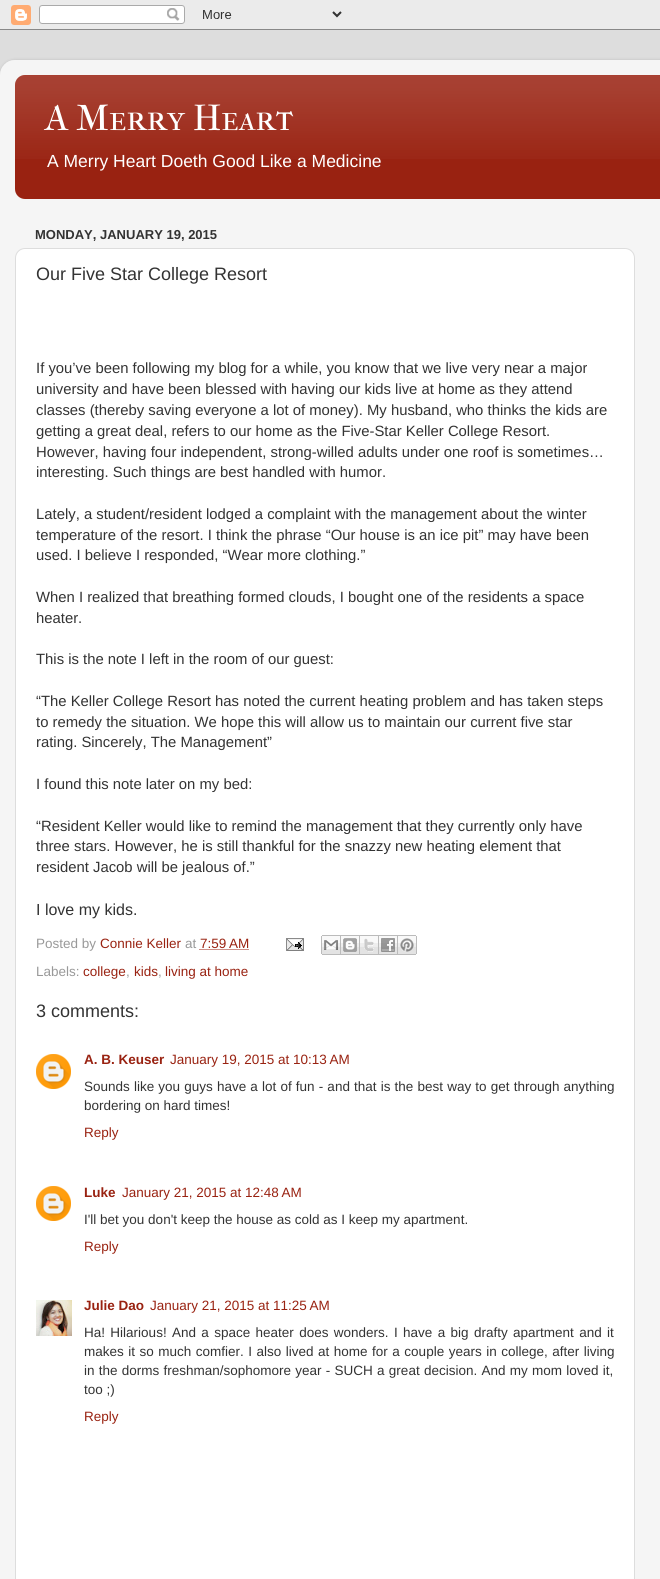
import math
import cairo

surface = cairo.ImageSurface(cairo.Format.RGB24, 660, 1579)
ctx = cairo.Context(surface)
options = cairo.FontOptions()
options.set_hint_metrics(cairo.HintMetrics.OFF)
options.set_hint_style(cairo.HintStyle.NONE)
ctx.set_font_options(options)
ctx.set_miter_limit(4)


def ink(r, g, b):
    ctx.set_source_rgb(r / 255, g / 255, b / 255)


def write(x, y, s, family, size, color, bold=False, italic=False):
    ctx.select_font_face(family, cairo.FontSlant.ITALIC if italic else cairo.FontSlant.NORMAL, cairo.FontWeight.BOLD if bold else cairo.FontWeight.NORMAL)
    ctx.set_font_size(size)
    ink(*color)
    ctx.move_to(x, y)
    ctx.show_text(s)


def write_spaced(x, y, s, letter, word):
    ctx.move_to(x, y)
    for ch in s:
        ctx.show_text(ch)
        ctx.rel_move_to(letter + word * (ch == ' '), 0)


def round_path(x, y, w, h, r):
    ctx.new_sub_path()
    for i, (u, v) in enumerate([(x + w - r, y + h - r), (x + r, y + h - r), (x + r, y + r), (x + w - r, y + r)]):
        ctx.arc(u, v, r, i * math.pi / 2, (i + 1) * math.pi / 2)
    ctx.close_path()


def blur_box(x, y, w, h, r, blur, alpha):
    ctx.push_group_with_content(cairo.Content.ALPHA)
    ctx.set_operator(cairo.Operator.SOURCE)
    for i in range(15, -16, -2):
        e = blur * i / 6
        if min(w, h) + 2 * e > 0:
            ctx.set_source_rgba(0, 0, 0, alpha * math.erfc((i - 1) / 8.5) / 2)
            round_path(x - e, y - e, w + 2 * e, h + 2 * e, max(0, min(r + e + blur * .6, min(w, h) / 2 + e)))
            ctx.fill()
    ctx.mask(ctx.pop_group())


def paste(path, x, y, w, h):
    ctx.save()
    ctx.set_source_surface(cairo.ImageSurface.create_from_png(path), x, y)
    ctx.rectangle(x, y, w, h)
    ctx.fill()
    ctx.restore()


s1 = dict(family="IM FELL French Canon SC", size=36, color=(255, 255, 255))
s2 = dict(family="Liberation Sans", size=17.5, color=(255, 255, 255))
s3 = dict(family="Liberation Sans", size=13, color=(51, 51, 51), bold=True)
s4 = dict(family="Liberation Sans", size=18, color=(51, 51, 51))
s5 = dict(family="Liberation Sans", size=14.85, color=(51, 51, 51))
s6 = dict(family="Liberation Sans", size=16, color=(51, 51, 51))
s7 = dict(family="Liberation Sans", size=13.5, color=(153, 153, 153))
s8 = dict(family="Liberation Sans", size=13.5, color=(153, 34, 17))
s9 = dict(family="Liberation Sans", size=13.5, color=(153, 34, 17), bold=True)
s10 = dict(family="Liberation Sans", size=13.5, color=(51, 51, 51))

ink(221, 221, 221)
ctx.paint()
paste("pic1.png", 0, 0, 660, 30)
ctx.save()
ctx.set_fill_rule(cairo.FillRule.EVEN_ODD)
ctx.new_path()
ctx.move_to(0, 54)
ctx.line_to(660, 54)
ctx.line_to(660, 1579)
ctx.line_to(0, 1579)
ctx.close_path()
ctx.move_to(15, 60)
ctx.line_to(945, 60)
ctx.curve_to(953.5, 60, 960, 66.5, 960, 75)
ctx.line_to(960, 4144)
ctx.curve_to(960, 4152.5, 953.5, 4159, 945, 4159)
ctx.line_to(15, 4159)
ctx.curve_to(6.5, 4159, 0, 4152.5, 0, 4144)
ctx.line_to(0, 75)
ctx.curve_to(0, 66.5, 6.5, 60, 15, 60)
ctx.close_path()
ctx.clip()
ink(0, 0, 0)
blur_box(0, 60, 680, 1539, 15, 1.5, 0.15)
ctx.restore()
paste("pic2.png", 0, 60, 660, 1519)
ink(153, 34, 17)
round_path(15, 75, 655, 124, 10)
ctx.fill()
paste("pic3.png", 15, 75, 645, 84)
write(45, 130, "A Merry Heart", **s1)
write(47, 167, "A Merry Heart Doeth Good Like a Medicine", **s2)
write(35, 239, "MONDAY, JANUARY 19, 2015", **s3)
ink(255, 255, 255)
round_path(15.5, 248.5, 619, 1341, 9.5)
ctx.fill_preserve()
ink(221, 221, 221)
ctx.set_line_width(1)
ctx.stroke()
write(36, 280, "Our Five Star College Resort", **s4)
write(36, 373, "If you’ve been following my blog for a while, you know that we live very near a major", **s5)
write(36, 394, "university and have been blessed with having our kids live at home as they attend", **s5)
write(36, 415, "classes (thereby saving everyone a lot of money). My husband, who thinks the kids are", **s5)
write(36, 436, "getting a great deal, refers to our home as the Five-Star Keller College Resort.", **s5)
write(36, 457, "However, having four independent, strong-willed adults under one roof is sometimes…", **s5)
write(36, 477, "interesting. Such things are best handled with humor.", **s5)
write(36, 519, "Lately, a student/resident lodged a complaint with the management about the winter", **s5)
write(36, 540, "temperature of the resort. I think the phrase “Our house is an ice pit” may have been", **s5)
write(36, 560, "used. I believe I responded, “Wear more clothing.”", **s5)
write(36, 602, "When I realized that breathing formed clouds, I bought one of the residents a space", **s5)
write(36, 623, "heater.", **s5)
write(36, 664, "This is the note I left in the room of our guest:", **s5)
write(36, 706, "“The Keller College Resort has noted the current heating problem and has taken steps", **s5)
write(36, 727, "to remedy the situation. We hope this will allow us to maintain our current five star", **s5)
write(36, 747, "rating. Sincerely, The Management”", **s5)
write(36, 789, "I found this note later on my bed:", **s5)
write(36, 831, "“Resident Keller would like to remind the management that they currently only have", **s5)
write(36, 851, "three stars. However, he is still thankful for the snazzy new heating element that", **s5)
write(36, 872, "resident Jacob will be jealous of.”", **s5)
write(36, 915, "I love my kids.", **s6)
write(36, 948, "Posted by", **s7)
write(100, 948, "Connie Keller", **s8)
write(185, 948, "at", **s7)
write(200, 948, "7:59 AM", **s8)
ctx.new_path()
ctx.move_to(199.5, 949.5)
ctx.line_to(249, 949.5)
ctx.set_dash([1, 1])
ctx.stroke()
paste("pic4.png", 286, 938, 18, 13)
paste("pic5.png", 321, 935, 20, 20)
paste("pic6.png", 341, 935, 19, 20)
paste("pic7.png", 360, 935, 19, 20)
paste("pic8.png", 379, 935, 19, 20)
paste("pic9.png", 398, 935, 19, 20)
write(36, 976, "Labels:", **s7)
write(83, 976, "college", **s8)
write(126, 976, ",", **s7)
write(134, 976, "kids", **s8)
write(158, 976, ",", **s7)
write(165, 976, "living at home", **s8)
write(36, 1017, "3 comments:", **s4)
paste("pic10.png", 36, 1054, 35, 35)
write(84, 1064, "A. B. Keuser", **s9)
write(170, 1064, "January 19, 2015 at 10:13 AM", **s8)
ink(51, 51, 51)
write_spaced(84, 1091, "Sounds like you guys have a lot of fun - and that is the best way to get through anything", 0, 0.4)
write(84, 1110, "bordering on hard times!", **s10)
write(84, 1137, "Reply", **s8)
paste("pic10.png", 36, 1186, 35, 35)
write(84, 1197, "Luke", **s9)
write(122, 1197, "January 21, 2015 at 12:48 AM", **s8)
write(84, 1224, "I'll bet you don't keep the house as cold as I keep my apartment.", **s10)
write(84, 1251, "Reply", **s8)
paste("pic11.png", 36, 1300, 36, 36)
write(84, 1310, "Julie Dao", **s9)
write(150, 1310, "January 21, 2015 at 11:25 AM", **s8)
ink(51, 51, 51)
write_spaced(84, 1337, "Ha! Hilarious! And a space heater does wonders. I have a big drafty apartment and it", 0, 1.6)
write_spaced(84, 1356, "makes it so much comfier. I also lived at home for a couple years in college, after living", 0, 0.75)
write_spaced(84, 1375, "in the dorms freshman/sophomore year - SUCH a great decision. And my mom loved it,", 0, 0.5)
write(84, 1394, "too ;)", **s10)
write(84, 1421, "Reply", **s8)
surface.write_to_png("screenshot.png")
